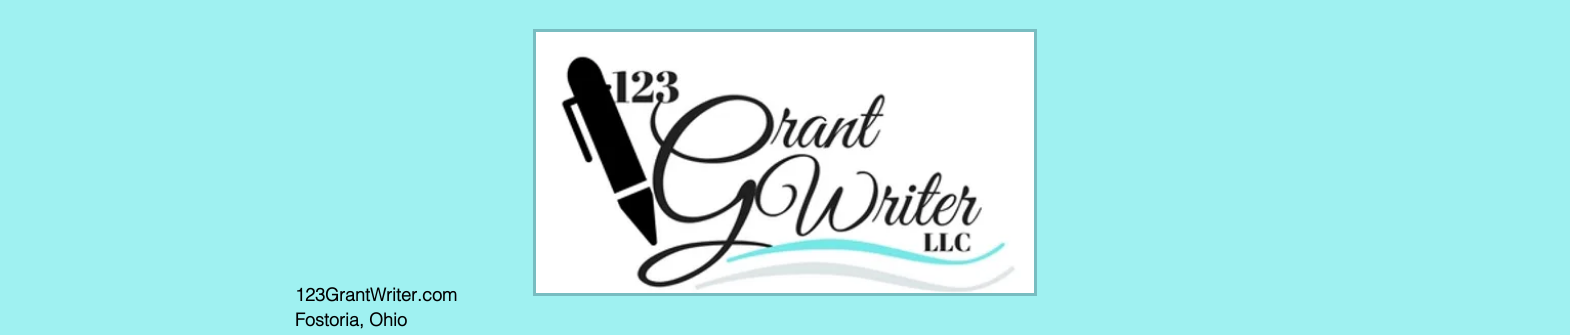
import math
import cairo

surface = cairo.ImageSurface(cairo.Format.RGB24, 1570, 335)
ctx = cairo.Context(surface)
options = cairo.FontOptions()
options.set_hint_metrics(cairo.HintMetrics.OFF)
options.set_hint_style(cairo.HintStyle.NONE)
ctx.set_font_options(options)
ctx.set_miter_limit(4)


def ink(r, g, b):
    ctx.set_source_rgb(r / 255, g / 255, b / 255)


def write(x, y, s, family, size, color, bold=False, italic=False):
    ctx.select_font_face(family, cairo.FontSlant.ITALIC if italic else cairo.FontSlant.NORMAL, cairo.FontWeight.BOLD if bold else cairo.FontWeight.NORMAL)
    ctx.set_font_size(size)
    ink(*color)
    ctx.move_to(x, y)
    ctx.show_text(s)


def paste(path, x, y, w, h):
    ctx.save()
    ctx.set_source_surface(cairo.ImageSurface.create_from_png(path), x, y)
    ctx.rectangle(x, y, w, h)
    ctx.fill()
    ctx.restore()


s1 = dict(family="helvetica", size=18, color=(0, 0, 0), bold=True)

ink(159, 241, 241)
ctx.paint()
ctx.rectangle(534.5, 30.5, 501, 264)
ink(120, 189, 193)
ctx.set_line_width(3)
ctx.stroke()
paste("pic1.png", 536, 32, 498, 261)
write(295, 301, "123GrantWriter.com", **s1)
write(295, 326, "Fostoria, Ohio", **s1)
surface.write_to_png("screenshot.png")
